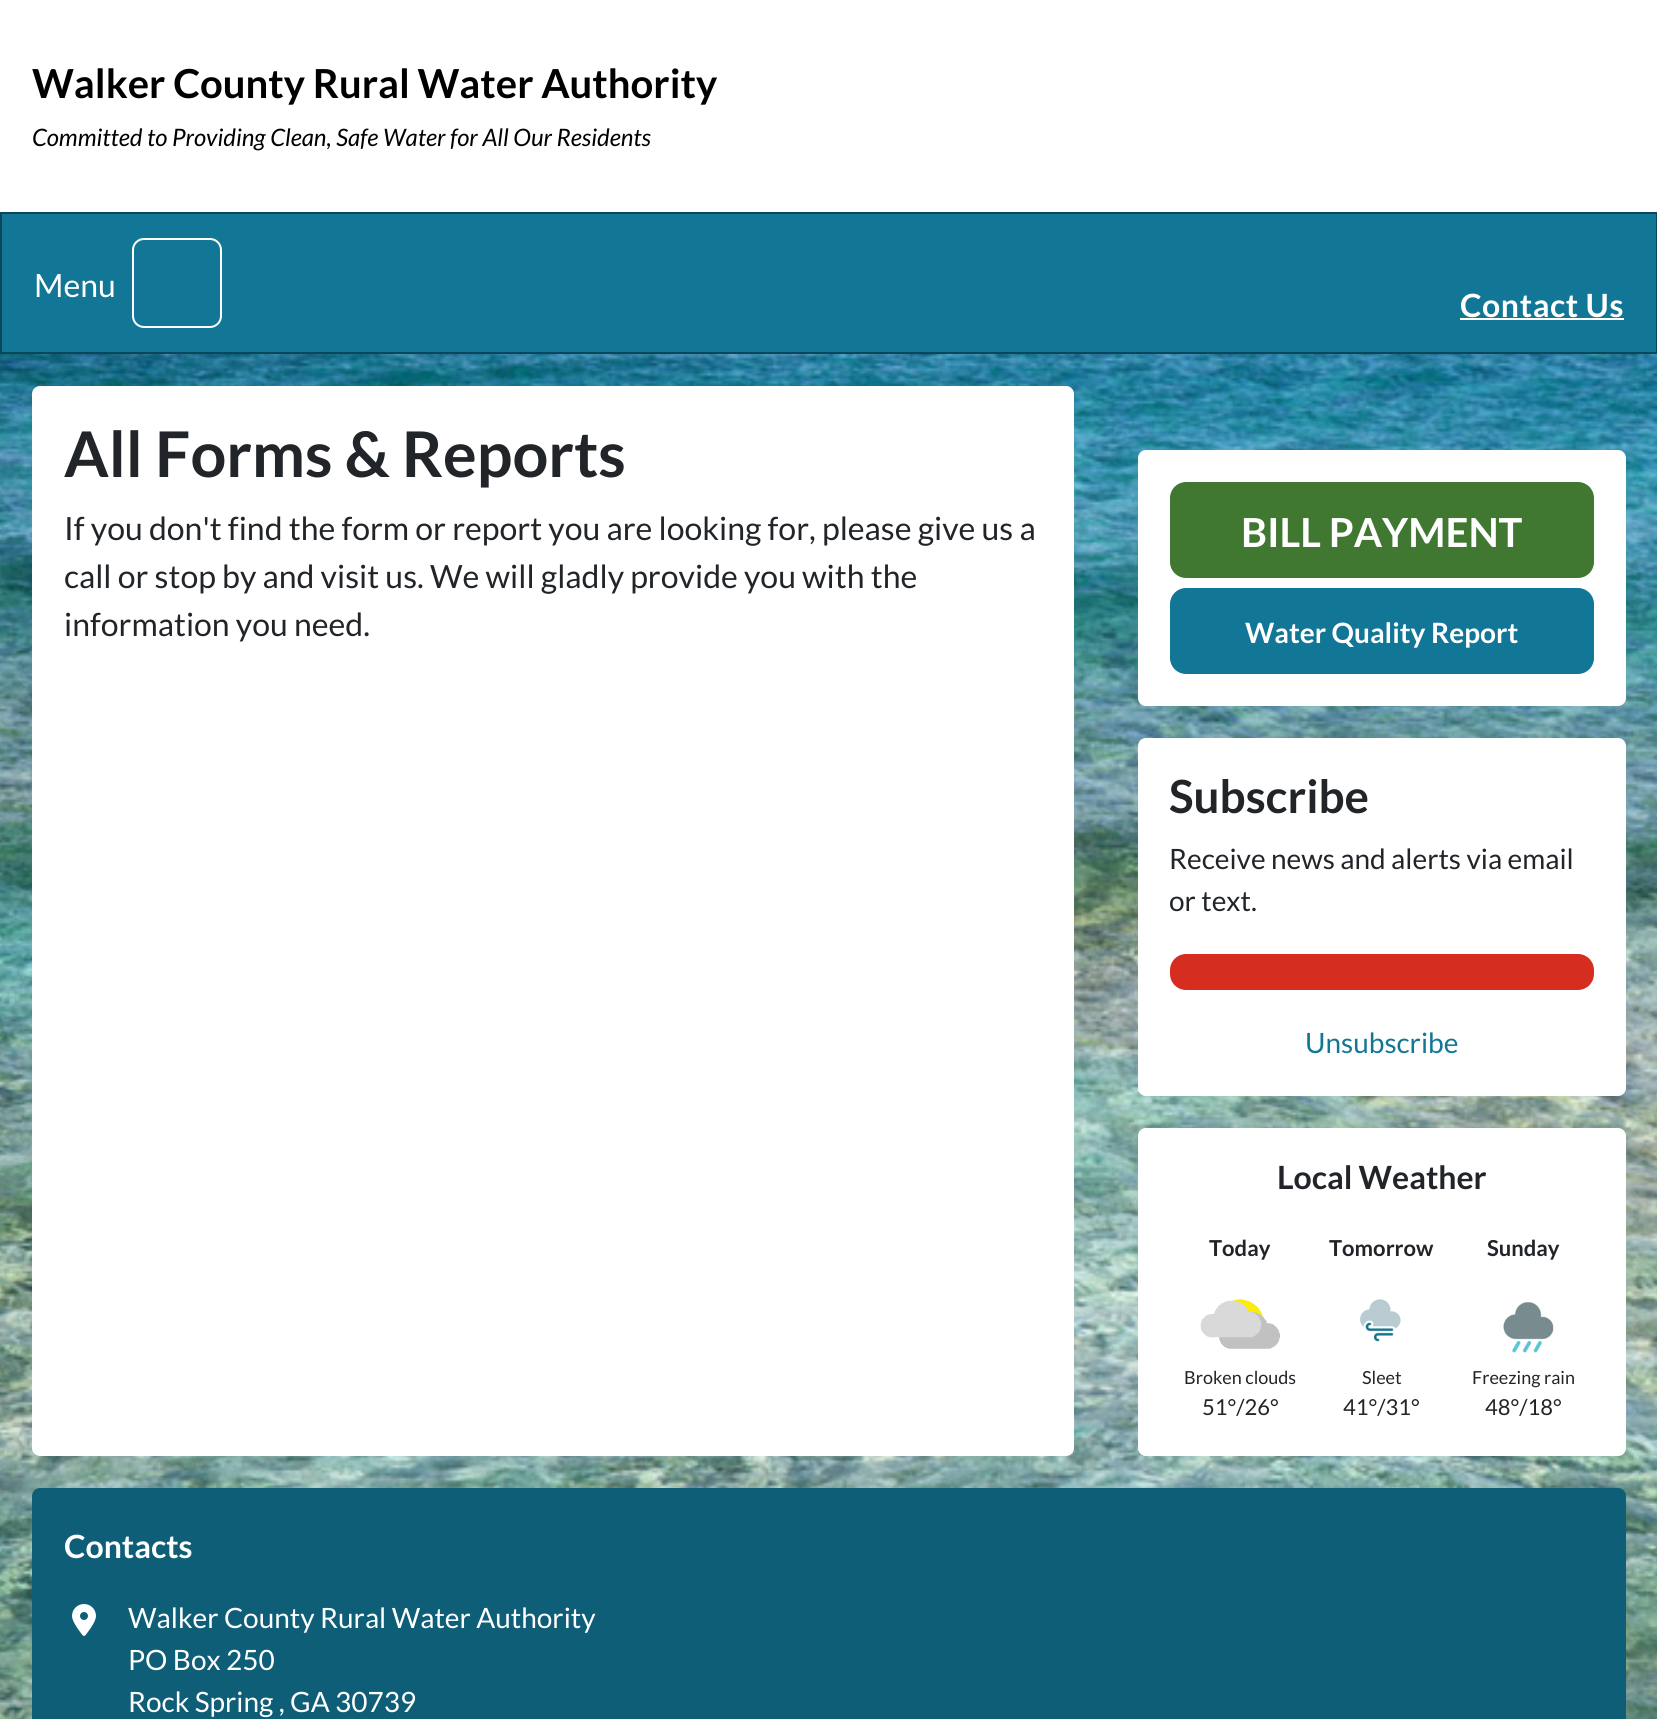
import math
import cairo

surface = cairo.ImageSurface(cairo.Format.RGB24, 1657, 1719)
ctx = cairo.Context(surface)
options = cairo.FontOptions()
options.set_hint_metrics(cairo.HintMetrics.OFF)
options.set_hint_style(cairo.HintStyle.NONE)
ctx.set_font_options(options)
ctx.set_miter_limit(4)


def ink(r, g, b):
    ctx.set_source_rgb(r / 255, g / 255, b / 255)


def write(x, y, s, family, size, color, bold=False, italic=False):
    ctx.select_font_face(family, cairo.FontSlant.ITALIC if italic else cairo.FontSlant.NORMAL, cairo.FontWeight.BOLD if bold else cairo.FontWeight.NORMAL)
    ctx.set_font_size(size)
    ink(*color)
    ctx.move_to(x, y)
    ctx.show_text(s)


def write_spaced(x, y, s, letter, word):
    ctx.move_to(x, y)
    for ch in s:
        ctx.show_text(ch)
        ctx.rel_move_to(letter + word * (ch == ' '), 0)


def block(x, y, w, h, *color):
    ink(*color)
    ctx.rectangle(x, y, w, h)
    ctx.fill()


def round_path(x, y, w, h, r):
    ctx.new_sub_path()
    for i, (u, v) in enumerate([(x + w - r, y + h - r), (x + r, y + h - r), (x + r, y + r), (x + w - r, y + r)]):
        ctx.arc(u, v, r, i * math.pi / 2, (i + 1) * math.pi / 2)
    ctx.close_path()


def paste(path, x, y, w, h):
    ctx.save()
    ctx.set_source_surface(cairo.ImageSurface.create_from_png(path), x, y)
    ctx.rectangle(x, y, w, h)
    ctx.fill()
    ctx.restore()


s1 = dict(family="Lato", size=40, color=(0, 0, 0), bold=True)
s2 = dict(family="Lato", size=24, color=(0, 0, 0), italic=True)
s3 = dict(family="Lato", size=32, color=(255, 255, 255))
s4 = dict(family="Lato", size=63, color=(33, 37, 41), bold=True)
s5 = dict(family="Lato", size=32, color=(33, 37, 41))
s6 = dict(family="Lato", size=40, color=(255, 255, 255), bold=True)
s7 = dict(family="Lato", size=28, color=(255, 255, 255), bold=True)
s8 = dict(family="Lato", size=45.75, color=(33, 37, 41), bold=True)
s9 = dict(family="Lato", size=28, color=(33, 37, 41))
s10 = dict(family="Lato", size=28, color=(18, 118, 150))
s11 = dict(family="Lato", size=32, color=(33, 37, 41), bold=True)
s12 = dict(family="Lato", size=22, color=(33, 37, 41), bold=True)
s13 = dict(family="Lato", size=18, color=(33, 37, 41))
s14 = dict(family="Lato", size=22, color=(33, 37, 41))
s15 = dict(family="Lato", size=32, color=(255, 255, 255), bold=True)
s16 = dict(family="Lato", size=28, color=(255, 255, 255))

ink(255, 255, 255)
ctx.paint()
paste("pic1.png", 0, 354, 1657, 1365)
write(32, 98, "Walker County Rural Water Authority", **s1)
write(32, 146, "Committed to Providing Clean, Safe Water for All Our Residents", **s2)
ink(18, 118, 150)
ctx.rectangle(1, 213, 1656, 140)
ctx.fill_preserve()
ink(11, 71, 90)
ctx.stroke()
write(34, 297, "Menu", **s3)
round_path(133, 239, 88, 88, 11)
ctx.stroke()
ctx.select_font_face("Lato", cairo.FontSlant.NORMAL, cairo.FontWeight.BOLD)
write_spaced(1460, 317, "Contact Us", 0.6, 0)
block(1460, 318, 164, 2, 255, 255, 255)
round_path(32, 386, 1042, 1070, 8)
ctx.fill()
write(64, 477, "All Forms & Reports", **s4)
write(64, 540, "If you don't find the form or report you are looking for, please give us a", **s5)
write(64, 588, "call or stop by and visit us. We will gladly provide you with the", **s5)
write(64, 636, "information you need.", **s5)
ink(255, 255, 255)
round_path(1138, 450, 488, 256, 8)
ctx.fill()
ink(65, 120, 49)
round_path(1171, 483, 422, 94, 15)
ctx.fill_preserve()
ctx.stroke()
write(1241, 547, "BILL PAYMENT", **s6)
ink(18, 118, 150)
round_path(1171, 589, 422, 84, 15)
ctx.fill_preserve()
ctx.stroke()
write(1245, 643, "Water Quality Report", **s7)
round_path(1138, 738, 488, 358, 8)
ctx.fill()
write(1169, 813, "Subscribe", **s8)
write(1169, 869, "Receive news and alerts via email", **s9)
write(1169, 911, "or text.", **s9)
ink(213, 46, 32)
round_path(1171, 955, 422, 34, 15)
ctx.fill_preserve()
ctx.stroke()
write(1305, 1053, "Unsubscribe", **s10)
ink(255, 255, 255)
round_path(1138, 1128, 488, 328, 8)
ctx.fill()
write(1277, 1189, "Local Weather", **s11)
write(1209, 1256, "Today", **s12)
write(1329, 1256, "Tomorrow", **s12)
write(1487, 1256, "Sunday", **s12)
paste("pic2.png", 1200, 1299, 80, 50)
write(1184, 1384, "Broken clouds", **s13)
write(1202, 1415, "51°/26°", **s14)
paste("pic3.png", 1360, 1299, 41, 43)
write(1362, 1384, "Sleet", **s13)
write(1343, 1415, "41°/31°", **s14)
paste("pic4.png", 1503, 1302, 51, 51)
write(1472, 1384, "Freezing rain", **s13)
write(1485, 1415, "48°/18°", **s14)
ink(14, 94, 120)
round_path(32, 1488, 1594, 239, 8)
ctx.fill()
write(64, 1558, "Contacts", **s15)
paste("pic5.png", 72, 1604, 24, 32)
write(128, 1628, "Walker County Rural Water Authority", **s16)
write(128, 1670, "PO Box 250", **s16)
write(128, 1712, "Rock Spring , GA 30739", **s16)
surface.write_to_png("screenshot.png")
